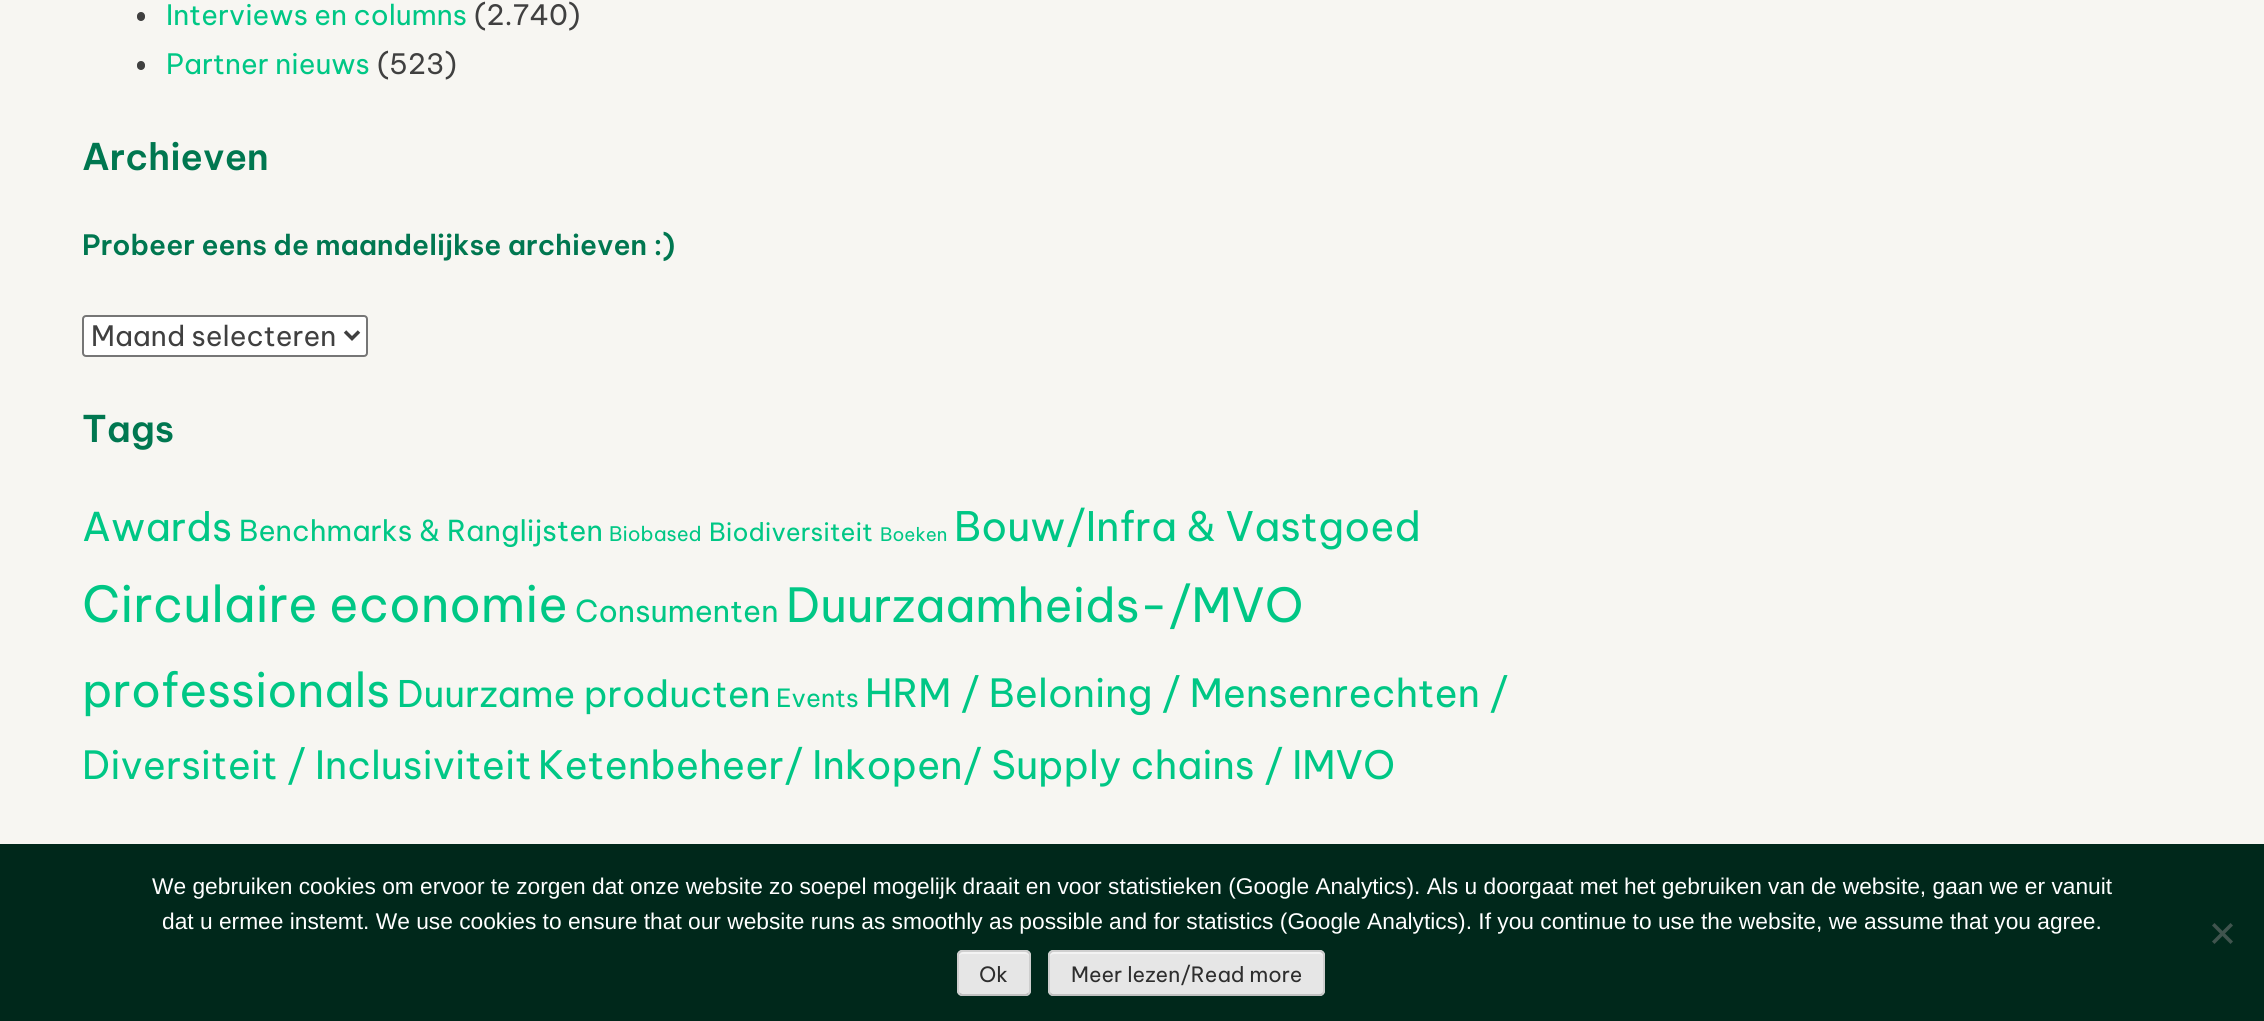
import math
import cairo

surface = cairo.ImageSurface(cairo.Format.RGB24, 2264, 1021)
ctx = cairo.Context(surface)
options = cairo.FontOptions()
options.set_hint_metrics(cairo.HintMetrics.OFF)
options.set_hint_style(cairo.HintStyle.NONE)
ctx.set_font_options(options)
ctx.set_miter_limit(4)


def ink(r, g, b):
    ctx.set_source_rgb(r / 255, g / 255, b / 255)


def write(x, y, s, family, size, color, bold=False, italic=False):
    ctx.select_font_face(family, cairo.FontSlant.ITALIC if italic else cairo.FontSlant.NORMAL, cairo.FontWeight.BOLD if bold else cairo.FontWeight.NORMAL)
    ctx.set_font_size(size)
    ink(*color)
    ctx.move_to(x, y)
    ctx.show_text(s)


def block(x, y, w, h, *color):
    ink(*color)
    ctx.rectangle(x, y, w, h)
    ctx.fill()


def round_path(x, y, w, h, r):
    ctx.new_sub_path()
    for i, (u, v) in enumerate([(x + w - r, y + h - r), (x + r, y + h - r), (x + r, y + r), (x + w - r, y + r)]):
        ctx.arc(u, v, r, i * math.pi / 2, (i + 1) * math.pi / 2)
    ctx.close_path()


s1 = dict(family="Be Vietnam Pro", size=28, color=(0, 199, 133))
s2 = dict(family="Be Vietnam Pro", size=28, color=(64, 64, 64))
s3 = dict(family="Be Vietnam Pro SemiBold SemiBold", size=36.75, color=(0, 119, 80))
s4 = dict(family="Be Vietnam Pro SemiBold SemiBold", size=28, color=(0, 119, 80))
s5 = dict(family="Be Vietnam Pro", size=39.5, color=(0, 199, 133))
s6 = dict(family="Be Vietnam Pro", size=28.75, color=(0, 199, 133))
s7 = dict(family="Be Vietnam Pro", size=20, color=(0, 199, 133))
s8 = dict(family="Be Vietnam Pro", size=25, color=(0, 199, 133))
s9 = dict(family="Be Vietnam Pro", size=18.5, color=(0, 199, 133))
s10 = dict(family="Be Vietnam Pro", size=40.5, color=(0, 199, 133))
s11 = dict(family="Be Vietnam Pro", size=49.5, color=(0, 199, 133))
s12 = dict(family="Be Vietnam Pro", size=30.25, color=(0, 199, 133))
s13 = dict(family="Be Vietnam Pro", size=46.9, color=(0, 199, 133))
s14 = dict(family="Be Vietnam Pro", size=36.5, color=(0, 199, 133))
s15 = dict(family="Be Vietnam Pro", size=38.75, color=(0, 199, 133))
s16 = dict(family="Be Vietnam Pro", size=39, color=(0, 199, 133))
s17 = dict(family="Liberation Sans", size=22.75, color=(255, 255, 255))
s18 = dict(family="Be Vietnam Pro", size=21, color=(46, 46, 46))

ink(247, 246, 242)
ctx.paint()
ink(64, 64, 64)
round_path(137, 12, 8, 9, 4)
ctx.fill()
write(166, 25, "Interviews en columns", **s1)
write(474, 25, "(2.740)", **s2)
round_path(137, 61, 8, 9, 4)
ctx.fill()
write(166, 74, "Partner nieuws", **s1)
write(377, 74, "(523)", **s2)
write(82, 170, "Archieven", **s3)
write(82, 255, "Probeer eens de maandelijkse archieven :)", **s4)
ink(255, 255, 255)
round_path(83, 316, 284, 40, 3)
ctx.fill_preserve()
ink(118, 118, 118)
ctx.stroke()
ctx.new_path()
ctx.move_to(345, 331.5)
ctx.line_to(352, 338.5)
ctx.line_to(359, 331.5)
ink(64, 64, 64)
ctx.set_line_width(3.5)
ctx.stroke()
write(91, 346, "Maand selecteren", **s2)
write(82, 442, "Tags", **s3)
write(82, 541, "Awards", **s5)
write(239, 541, "Benchmarks & Ranglijsten", **s6)
write(609, 541, "Biobased", **s7)
write(709, 541, "Biodiversiteit", **s8)
write(880, 541, "Boeken", **s9)
write(954, 541, "Bouw/Infra & Vastgoed", **s10)
write(82, 622, "Circulaire economie", **s11)
write(575, 622, "Consumenten", **s12)
write(786, 622, "Duurzaamheids-/MVO", **s13)
write(82, 707, "professionals", **s13)
write(397, 707, "Duurzame producten", **s14)
write(776, 707, "Events", **s8)
write(865, 707, "HRM / Beloning / Mensenrechten /", **s15)
write(82, 779, "Diversiteit / Inclusiviteit", **s15)
write(538, 779, "Ketenbeheer/ Inkopen/ Supply chains / IMVO", **s16)
block(0, 844, 2264, 177, 0, 40, 27)
write(152, 894, "We gebruiken cookies om ervoor te zorgen dat onze website zo soepel mogelijk draait en voor statistieken (Google Analytics). Als u doorgaat met het gebruiken van de website, gaan we er vanuit", **s17)
write(162, 929, "dat u ermee instemt. We use cookies to ensure that our website runs as smoothly as possible and for statistics (Google Analytics). If you continue to use the website, we assume that you agree.", **s17)
ink(64, 84, 78)
ctx.new_path()
ctx.move_to(2230.5, 923)
ctx.line_to(2233, 925.5)
ctx.line_to(2214.5, 944)
ctx.line_to(2212, 941.5)
ctx.close_path()
ctx.fill()
ctx.new_path()
ctx.move_to(2212, 925.5)
ctx.line_to(2214.5, 923)
ctx.line_to(2233, 941.5)
ctx.line_to(2230.5, 944)
ctx.close_path()
ctx.fill()
ink(230, 230, 230)
round_path(957, 950, 74, 46, 5)
ctx.fill()
ink(243, 243, 243)
ctx.new_path()
ctx.move_to(962, 954)
ctx.line_to(1026, 954)
ctx.curve_to(1027, 954, 1029, 955, 1029, 957)
ctx.curve_to(1029, 950, 1020, 952, 1015, 952)
ctx.line_to(973, 952)
ctx.curve_to(968, 952, 959, 950, 959, 957)
ctx.curve_to(959, 955, 961, 954, 962, 954)
ctx.close_path()
ctx.fill()
ctx.new_path()
ctx.move_to(1028.5, 993.5)
ctx.line_to(1026, 995)
ctx.line_to(962, 995)
ctx.line_to(959.5, 993.5)
ink(187, 187, 187)
ctx.set_line_width(1.8)
ctx.stroke()
ctx.new_path()
ctx.move_to(959.5, 993.5)
ctx.curve_to(958.5, 993, 958, 991.5, 958, 990.5)
ctx.line_to(958, 955.5)
ctx.curve_to(958, 954.5, 958.5, 953, 959.5, 952.5)
ctx.curve_to(960, 951.5, 961.5, 951, 962.5, 951)
ctx.line_to(1025.5, 951)
ctx.curve_to(1026.5, 951, 1028, 951.5, 1028.5, 952.5)
ctx.curve_to(1029.5, 953, 1030, 954.5, 1030, 955.5)
ctx.line_to(1030, 990.5)
ctx.curve_to(1030, 991.5, 1029.5, 993, 1028.5, 993.5)
ink(204, 204, 204)
ctx.stroke()
write(979, 982, "Ok", **s18)
ink(230, 230, 230)
round_path(1048, 950, 277, 46, 5)
ctx.fill()
ink(243, 243, 243)
ctx.new_path()
ctx.move_to(1054, 954)
ctx.line_to(1320, 954)
ctx.curve_to(1321, 954, 1323, 955, 1323, 957)
ctx.curve_to(1323, 954, 1322, 952, 1319, 952)
ctx.line_to(1054, 952)
ctx.curve_to(1051, 952, 1050, 954, 1050, 957)
ctx.curve_to(1050, 955, 1052, 954, 1054, 954)
ctx.close_path()
ctx.fill()
ctx.new_path()
ctx.move_to(1322.5, 993.5)
ctx.curve_to(1322, 994.5, 1320.5, 995, 1319.5, 995)
ctx.line_to(1053.5, 995)
ctx.curve_to(1052.5, 995, 1051, 994.5, 1050.5, 993.5)
ink(187, 187, 187)
ctx.stroke()
ctx.new_path()
ctx.move_to(1050.5, 993.5)
ctx.curve_to(1049.5, 993, 1049, 991.5, 1049, 990.5)
ctx.line_to(1049, 955.5)
ctx.curve_to(1049, 954.5, 1049.5, 953, 1050.5, 952.5)
ctx.curve_to(1051, 951.5, 1052.5, 951, 1053.5, 951)
ctx.line_to(1319.5, 951)
ctx.curve_to(1320.5, 951, 1322, 951.5, 1322.5, 952.5)
ctx.curve_to(1323.5, 953, 1324, 954.5, 1324, 955.5)
ctx.line_to(1324, 990.5)
ctx.curve_to(1324, 991.5, 1323.5, 993, 1322.5, 993.5)
ink(204, 204, 204)
ctx.stroke()
write(1071, 982, "Meer lezen/Read more", **s18)
surface.write_to_png("screenshot.png")
